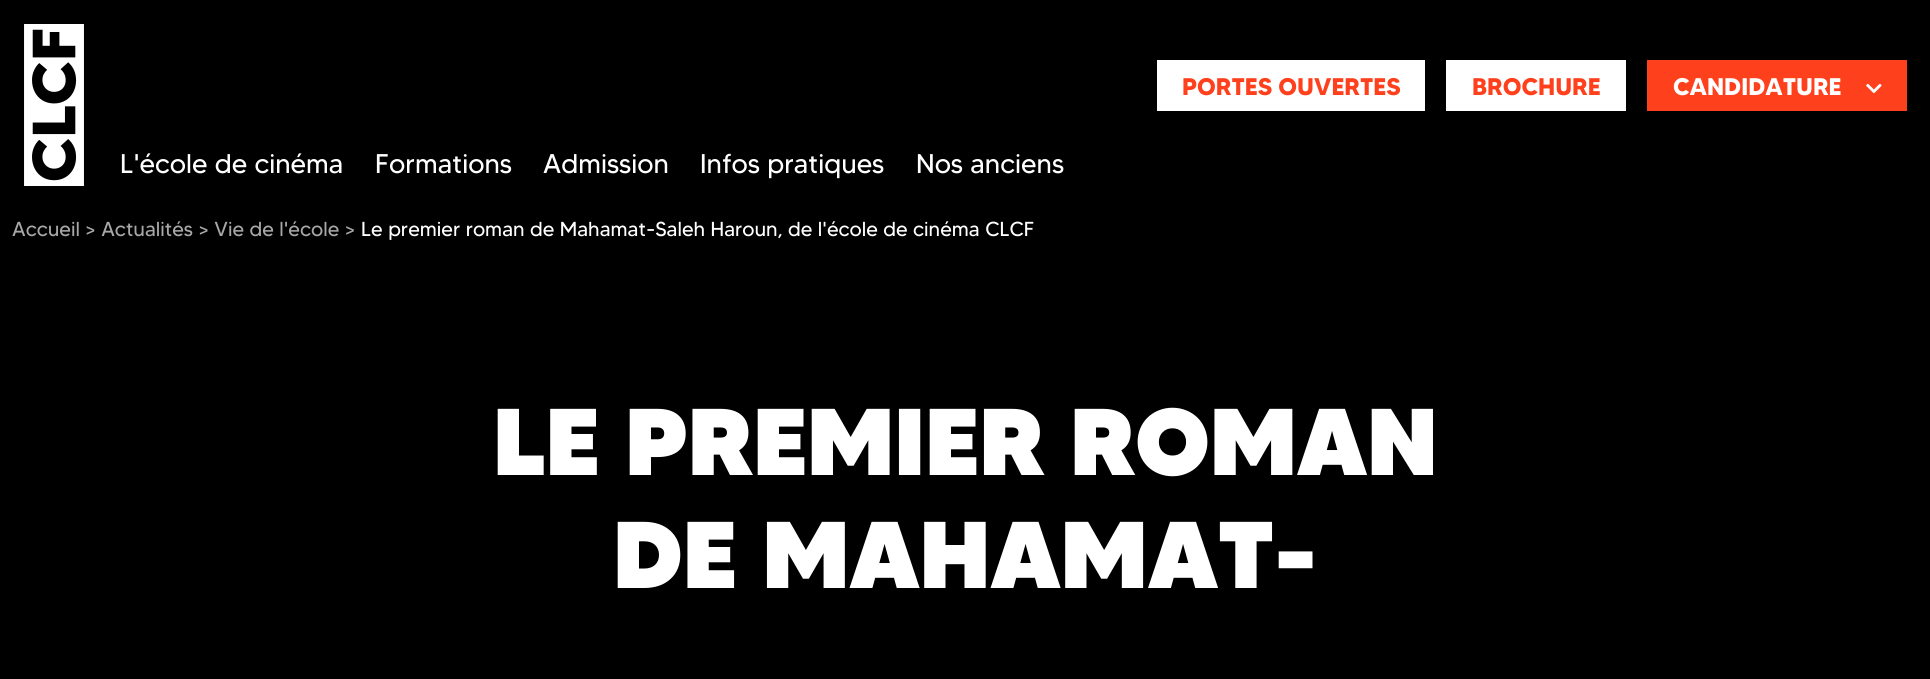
import math
import cairo

surface = cairo.ImageSurface(cairo.Format.RGB24, 1930, 679)
ctx = cairo.Context(surface)
options = cairo.FontOptions()
options.set_hint_metrics(cairo.HintMetrics.OFF)
options.set_hint_style(cairo.HintStyle.NONE)
ctx.set_font_options(options)
ctx.set_miter_limit(4)


def ink(r, g, b):
    ctx.set_source_rgb(r / 255, g / 255, b / 255)


def write(x, y, s, family, size, color, bold=False, italic=False):
    ctx.select_font_face(family, cairo.FontSlant.ITALIC if italic else cairo.FontSlant.NORMAL, cairo.FontWeight.BOLD if bold else cairo.FontWeight.NORMAL)
    ctx.set_font_size(size)
    ink(*color)
    ctx.move_to(x, y)
    ctx.show_text(s)


def block(x, y, w, h, *color):
    ink(*color)
    ctx.rectangle(x, y, w, h)
    ctx.fill()


def paste(path, x, y, w, h):
    ctx.save()
    ctx.set_source_surface(cairo.ImageSurface.create_from_png(path), x, y)
    ctx.rectangle(x, y, w, h)
    ctx.fill()
    ctx.restore()


s1 = dict(family="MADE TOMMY", size=24, color=(255, 64, 28), bold=True)
s2 = dict(family="MADE TOMMY", size=24, color=(255, 255, 255), bold=True)
s3 = dict(family="MADE TOMMY", size=27, color=(255, 255, 255))
s4 = dict(family="MADE TOMMY", size=20.25, color=(167, 167, 167))
s5 = dict(family="MADE TOMMY", size=20.25, color=(255, 255, 255))
s6 = dict(family="MADE TOMMY Black", size=94.5, color=(255, 255, 255))

ink(0, 0, 0)
ctx.paint()
paste("pic1.png", 24, 24, 60, 162)
block(1157, 60, 268, 51, 255, 255, 255)
write(1182, 95, "PORTES OUVERTES", **s1)
block(1446, 60, 180, 51, 255, 255, 255)
write(1472, 95, "BROCHURE", **s1)
block(1647, 60, 260, 51, 255, 64, 28)
write(1673, 95, "CANDIDATURE", **s2)
paste("pic2.png", 1866, 83, 16, 11)
write(120, 173, "L'école de cinéma", **s3)
write(375, 173, "Formations", **s3)
write(543, 173, "Admission", **s3)
write(700, 173, "Infos pratiques", **s3)
write(916, 173, "Nos anciens", **s3)
write(12, 236, "Accueil > Actualités > Vie de l'école >", **s4)
write(361, 236, "Le premier roman de Mahamat-Saleh Haroun, de l'école de cinéma CLCF", **s5)
write(493, 475, "LE PREMIER ROMAN", **s6)
write(613, 588, "DE MAHAMAT-", **s6)
surface.write_to_png("screenshot.png")
